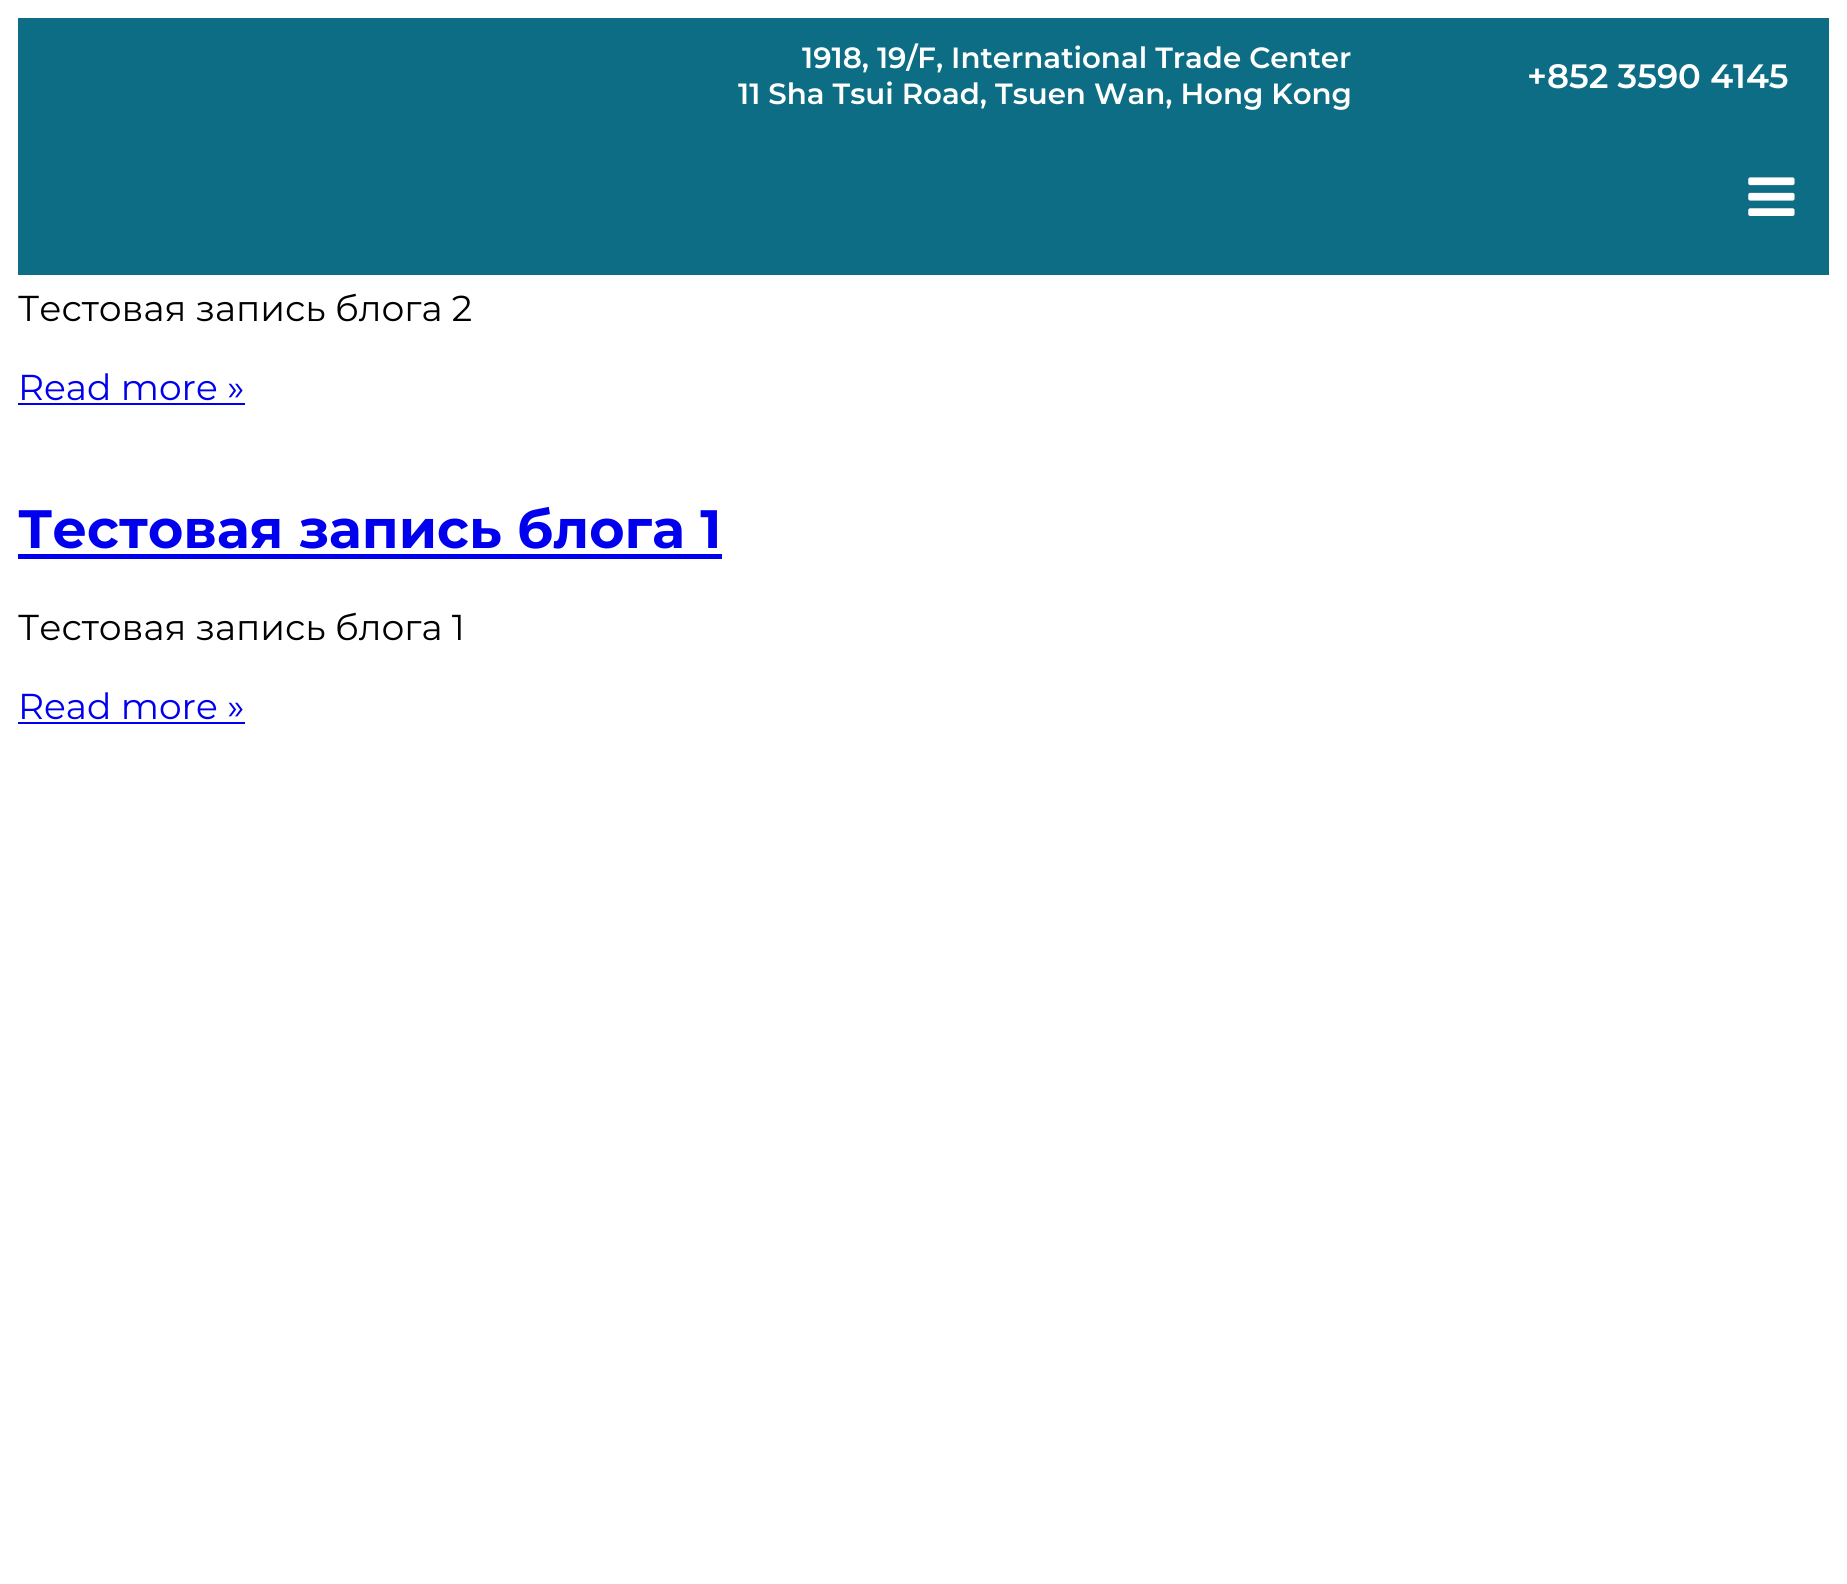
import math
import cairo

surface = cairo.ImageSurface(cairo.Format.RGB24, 1847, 1584)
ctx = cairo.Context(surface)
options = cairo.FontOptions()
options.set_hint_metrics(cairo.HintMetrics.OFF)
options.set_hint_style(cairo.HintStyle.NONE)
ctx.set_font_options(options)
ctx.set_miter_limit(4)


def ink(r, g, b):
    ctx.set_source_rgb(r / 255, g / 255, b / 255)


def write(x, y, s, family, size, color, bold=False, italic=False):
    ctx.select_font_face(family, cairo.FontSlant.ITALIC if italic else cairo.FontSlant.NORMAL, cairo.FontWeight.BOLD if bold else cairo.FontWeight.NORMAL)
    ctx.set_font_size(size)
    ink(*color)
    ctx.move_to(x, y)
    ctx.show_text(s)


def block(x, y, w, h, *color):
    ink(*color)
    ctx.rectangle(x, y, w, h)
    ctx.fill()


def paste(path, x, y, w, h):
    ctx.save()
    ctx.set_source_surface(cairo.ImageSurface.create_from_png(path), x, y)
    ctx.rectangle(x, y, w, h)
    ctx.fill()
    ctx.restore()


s1 = dict(family="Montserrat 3 Thin", size=29.25, color=(255, 255, 255))
s2 = dict(family="Montserrat 3 Thin", size=33.75, color=(255, 255, 255))
s3 = dict(family="Montserrat Thin", size=36, color=(0, 0, 0))
s4 = dict(family="Montserrat Thin", size=36, color=(0, 0, 238))
s5 = dict(family="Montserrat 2 Thin", size=54, color=(0, 0, 238))

ink(255, 255, 255)
ctx.paint()
block(18, 18, 1811, 257, 12, 109, 133)
write(802, 68, "1918, 19/F, International Trade Center", **s1)
write(738, 104, "11 Sha Tsui Road, Tsuen Wan, Hong Kong", **s1)
write(1527, 88, "+852 3590 4145", **s2)
paste("pic1.png", 1748, 177, 47, 39)
write(18, 321, "Тестовая запись блога 2", **s3)
write(18, 400, "Read more »", **s4)
block(18, 403, 227, 2, 0, 0, 238)
write(18, 548, "Тестовая запись блога 1", **s5)
block(18, 554, 704, 5, 0, 0, 238)
write(18, 640, "Тестовая запись блога 1", **s3)
write(18, 719, "Read more »", **s4)
block(18, 722, 227, 2, 0, 0, 238)
surface.write_to_png("screenshot.png")
